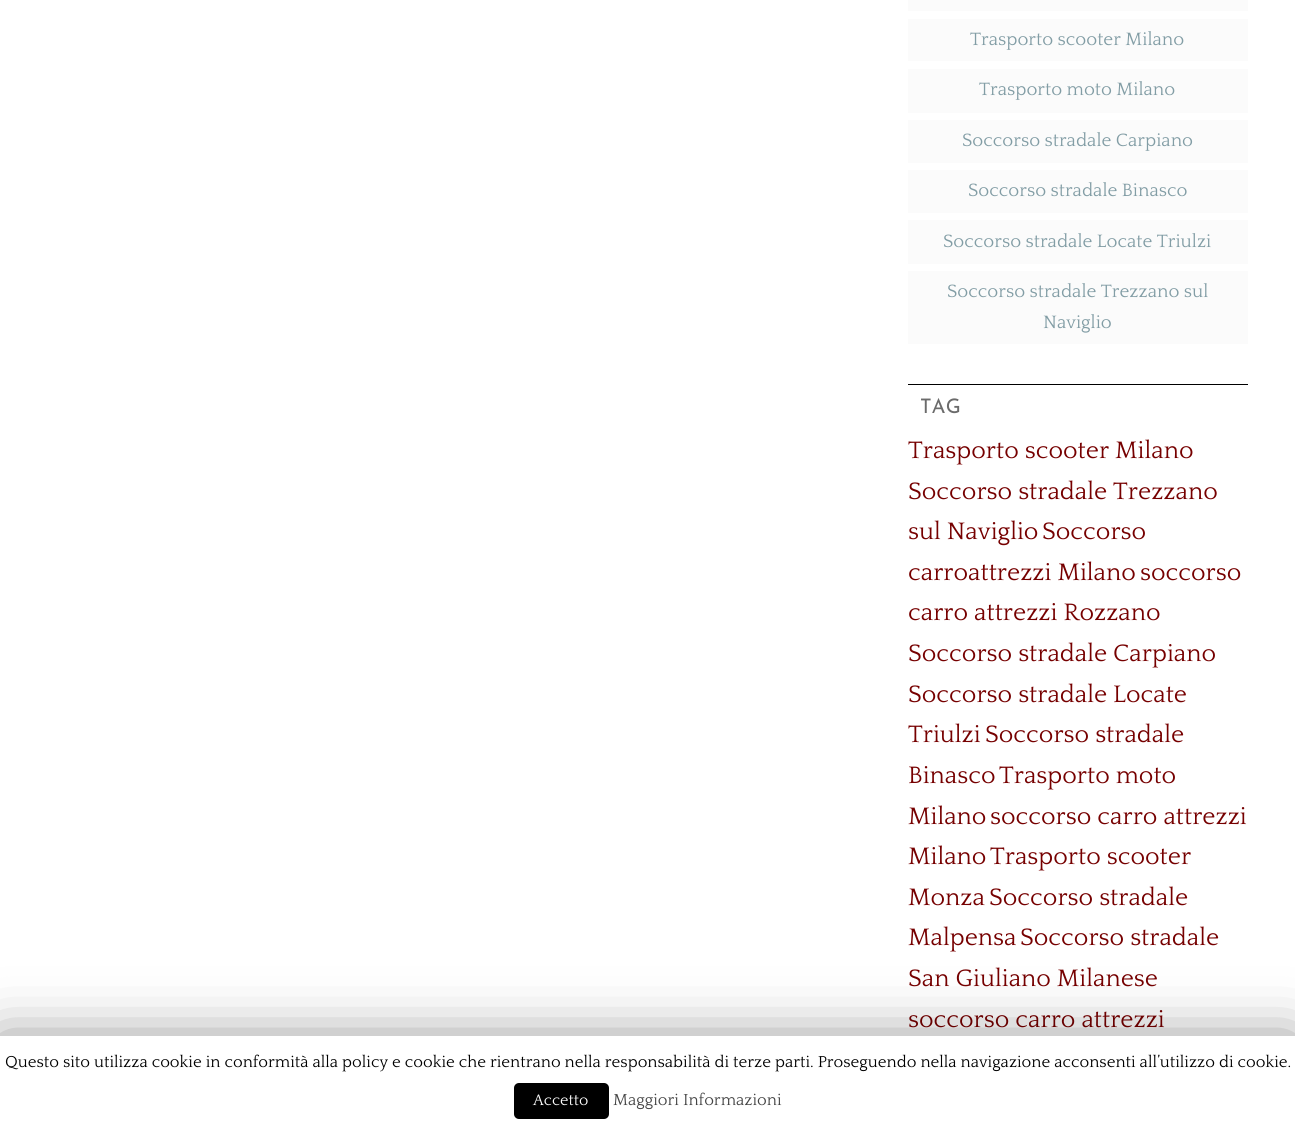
import math
import cairo

surface = cairo.ImageSurface(cairo.Format.RGB24, 1295, 1131)
ctx = cairo.Context(surface)
options = cairo.FontOptions()
options.set_hint_metrics(cairo.HintMetrics.OFF)
options.set_hint_style(cairo.HintStyle.NONE)
ctx.set_font_options(options)
ctx.set_miter_limit(4)


def ink(r, g, b):
    ctx.set_source_rgb(r / 255, g / 255, b / 255)


def write(x, y, s, family, size, color, bold=False, italic=False):
    ctx.select_font_face(family, cairo.FontSlant.ITALIC if italic else cairo.FontSlant.NORMAL, cairo.FontWeight.BOLD if bold else cairo.FontWeight.NORMAL)
    ctx.set_font_size(size)
    ink(*color)
    ctx.move_to(x, y)
    ctx.show_text(s)


def block(x, y, w, h, *color):
    ink(*color)
    ctx.rectangle(x, y, w, h)
    ctx.fill()


def round_path(x, y, w, h, r):
    ctx.new_sub_path()
    for i, (u, v) in enumerate([(x + w - r, y + h - r), (x + r, y + h - r), (x + r, y + r), (x + w - r, y + r)]):
        ctx.arc(u, v, r, i * math.pi / 2, (i + 1) * math.pi / 2)
    ctx.close_path()


def blur_box(x, y, w, h, r, blur, alpha):
    ctx.push_group_with_content(cairo.Content.ALPHA)
    ctx.set_operator(cairo.Operator.SOURCE)
    for i in range(15, -16, -2):
        e = blur * i / 6
        if min(w, h) + 2 * e > 0:
            ctx.set_source_rgba(0, 0, 0, alpha * math.erfc((i - 1) / 8.5) / 2)
            round_path(x - e, y - e, w + 2 * e, h + 2 * e, max(0, min(r + e + blur * .6, min(w, h) / 2 + e)))
            ctx.fill()
    ctx.mask(ctx.pop_group())


s1 = dict(family="Quattrocento", size=18.75, color=(130, 157, 165))
s2 = dict(family="Josefin Sans Thin", size=20, color=(107, 107, 107))
s3 = dict(family="Quattrocento", size=25, color=(118, 0, 0))
s4 = dict(family="Quattrocento", size=16.67, color=(0, 0, 0))
s5 = dict(family="Quattrocento", size=16, color=(255, 255, 255))
s6 = dict(family="Quattrocento", size=16.67, color=(68, 68, 68))

ink(255, 255, 255)
ctx.paint()
block(908, 0, 340, 11, 251, 251, 251)
block(908, 19, 340, 42, 251, 251, 251)
write(970, 45, "Trasporto scooter Milano", **s1)
block(908, 69, 340, 44, 251, 251, 251)
write(979, 95, "Trasporto moto Milano", **s1)
block(908, 120, 340, 43, 251, 251, 251)
write(962, 146, "Soccorso stradale Carpiano", **s1)
block(908, 170, 340, 43, 251, 251, 251)
write(968, 196, "Soccorso stradale Binasco", **s1)
block(908, 220, 340, 44, 251, 251, 251)
write(943, 247, "Soccorso stradale Locate Triulzi", **s1)
block(908, 271, 340, 73, 251, 251, 251)
write(947, 297, "Soccorso stradale Trezzano sul", **s1)
write(1043, 328, "Naviglio", **s1)
block(908, 384, 340, 1, 0, 0, 0)
write(920, 413, "TAG", **s2)
write(908, 458, "Trasporto scooter Milano", **s3)
write(908, 499, "Soccorso stradale Trezzano", **s3)
write(908, 539, "sul Naviglio", **s3)
write(1042, 539, "Soccorso", **s3)
write(908, 580, "carroattrezzi Milano", **s3)
write(1140, 580, "soccorso", **s3)
write(908, 620, "carro attrezzi Rozzano", **s3)
write(908, 661, "Soccorso stradale Carpiano", **s3)
write(908, 702, "Soccorso stradale Locate", **s3)
write(908, 742, "Triulzi", **s3)
write(985, 742, "Soccorso stradale", **s3)
write(908, 783, "Binasco", **s3)
write(999, 783, "Trasporto moto", **s3)
write(908, 824, "Milano", **s3)
write(990, 824, "soccorso carro attrezzi", **s3)
write(908, 864, "Milano", **s3)
write(990, 864, "Trasporto scooter", **s3)
write(908, 905, "Monza", **s3)
write(989, 905, "Soccorso stradale", **s3)
write(908, 945, "Malpensa", **s3)
write(1020, 945, "Soccorso stradale", **s3)
write(908, 986, "San Giuliano Milanese", **s3)
write(908, 1027, "soccorso carro attrezzi", **s3)
ink(0, 0, 0)
blur_box(0, 1043, 1295, 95, 0, 31, 0.5)
block(0, 1036, 1295, 95, 255, 255, 255)
write(5, 1067, "Questo sito utilizza cookie in conformità alla policy e cookie che rientrano nella responsabilità di terze parti. Proseguendo nella navigazione acconsenti all’utilizzo di cookie.", **s4)
round_path(514, 1083, 95, 36, 5)
ctx.fill()
write(533, 1105, "Accetto", **s5)
write(613, 1105, "Maggiori Informazioni", **s6)
surface.write_to_png("screenshot.png")
